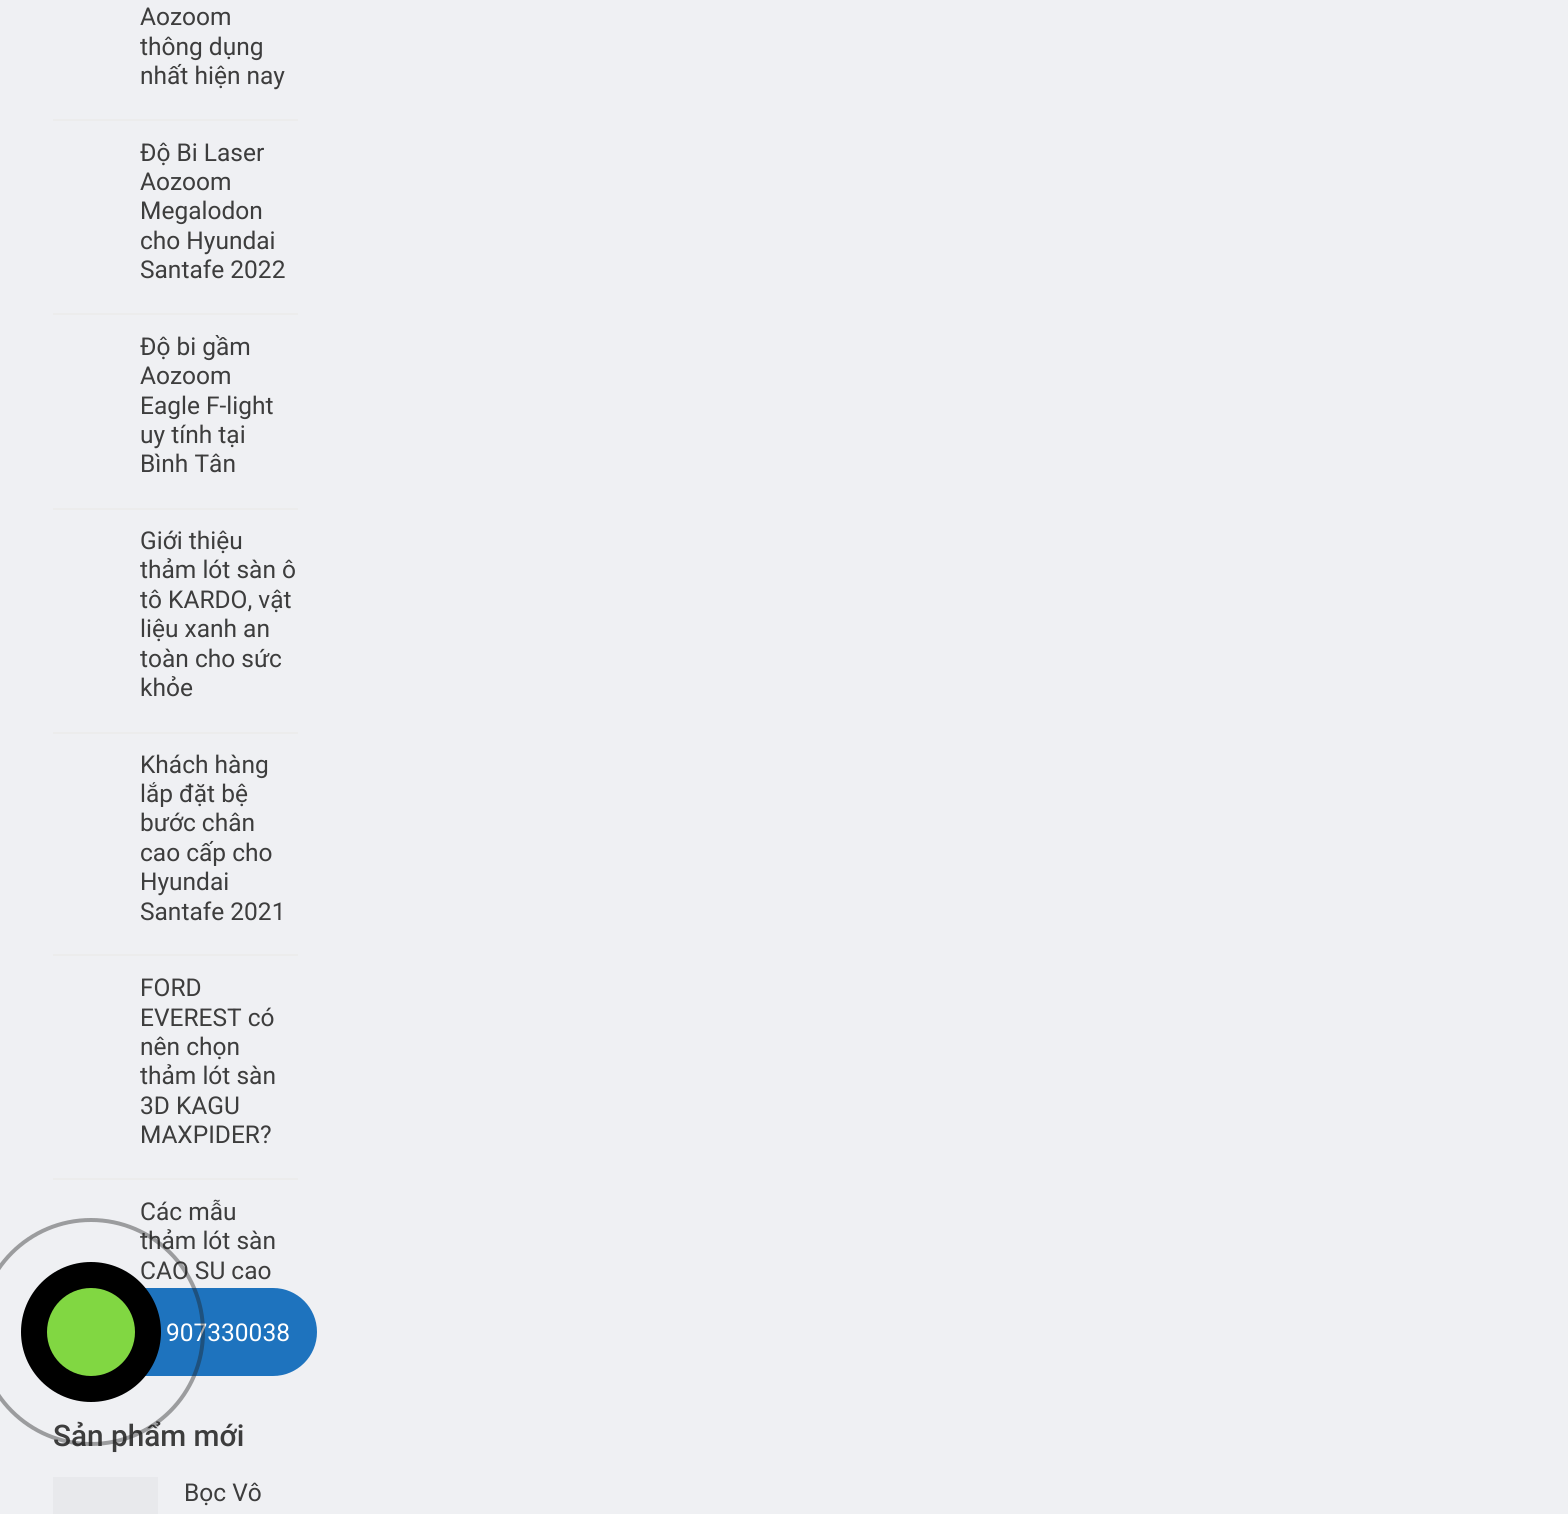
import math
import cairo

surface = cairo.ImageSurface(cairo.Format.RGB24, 1568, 1514)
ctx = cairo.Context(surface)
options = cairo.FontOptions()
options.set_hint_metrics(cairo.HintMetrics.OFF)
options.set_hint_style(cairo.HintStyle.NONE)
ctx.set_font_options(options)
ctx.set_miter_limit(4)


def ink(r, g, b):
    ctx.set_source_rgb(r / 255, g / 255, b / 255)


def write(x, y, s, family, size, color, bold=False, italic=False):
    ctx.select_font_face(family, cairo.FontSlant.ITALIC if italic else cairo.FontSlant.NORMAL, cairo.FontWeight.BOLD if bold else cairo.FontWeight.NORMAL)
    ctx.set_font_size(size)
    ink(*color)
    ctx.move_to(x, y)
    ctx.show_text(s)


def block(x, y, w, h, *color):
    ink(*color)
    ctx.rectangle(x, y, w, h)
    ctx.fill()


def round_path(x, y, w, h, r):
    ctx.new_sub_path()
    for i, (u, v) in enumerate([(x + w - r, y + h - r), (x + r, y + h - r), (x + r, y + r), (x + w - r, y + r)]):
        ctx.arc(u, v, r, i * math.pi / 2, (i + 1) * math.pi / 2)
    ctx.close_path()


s1 = dict(family="Roboto", size=24.5, color=(61, 61, 61))
s2 = dict(family="Roboto Medium", size=29.75, color=(61, 61, 61))
s3 = dict(family="Roboto", size=24.5, color=(255, 255, 255))

ink(239, 240, 243)
ctx.paint()
write(140, 25, "Aozoom", **s1)
write(140, 55, "thông dụng", **s1)
write(140, 84, "nhất hiện nay", **s1)
block(53, 119, 245, 2, 236, 236, 236)
write(140, 161, "Độ Bi Laser", **s1)
write(140, 190, "Aozoom", **s1)
write(140, 219, "Megalodon", **s1)
write(140, 249, "cho Hyundai", **s1)
write(140, 278, "Santafe 2022", **s1)
block(53, 313, 245, 2, 236, 236, 236)
write(140, 355, "Độ bi gầm", **s1)
write(140, 384, "Aozoom", **s1)
write(140, 414, "Eagle F-light", **s1)
write(140, 443, "uy tính tại", **s1)
write(140, 472, "Bình Tân", **s1)
block(53, 508, 245, 2, 236, 236, 236)
write(140, 549, "Giới thiệu", **s1)
write(140, 578, "thảm lót sàn ô", **s1)
write(140, 608, "tô KARDO, vật", **s1)
write(140, 637, "liệu xanh an", **s1)
write(140, 667, "toàn cho sức", **s1)
write(140, 696, "khỏe", **s1)
block(53, 732, 245, 2, 236, 236, 236)
write(140, 773, "Khách hàng", **s1)
write(140, 802, "lắp đặt bệ", **s1)
write(140, 831, "bước chân", **s1)
write(140, 861, "cao cấp cho", **s1)
write(140, 890, "Hyundai", **s1)
write(140, 920, "Santafe 2021", **s1)
block(53, 954, 245, 2, 236, 236, 236)
write(140, 996, "FORD", **s1)
write(140, 1026, "EVEREST có", **s1)
write(140, 1055, "nên chọn", **s1)
write(140, 1084, "thảm lót sàn", **s1)
write(140, 1114, "3D KAGU", **s1)
write(140, 1143, "MAXPIDER?", **s1)
block(53, 1178, 245, 2, 236, 236, 236)
write(140, 1220, "Các mẫu", **s1)
write(140, 1249, "thảm lót sàn", **s1)
write(140, 1279, "CAO SU cao", **s1)
write(53, 1446, "Sản phẩm mới", **s2)
block(53, 1477, 105, 37, 232, 233, 236)
write(184, 1501, "Bọc Vô", **s1)
ink(30, 115, 190)
round_path(47, 1288, 270, 88, 44)
ctx.fill()
write(166, 1341, "907330038", **s3)
ctx.new_path()
ctx.arc(91, 1332, 112, 0, 2 * math.pi)
ctx.set_source_rgba(0.118, 0.118, 0.118, 0.4)
ctx.set_line_width(4)
ctx.stroke()
ink(0, 0, 0)
ctx.arc(91, 1332, 70, 0, 2 * math.pi)
ctx.fill()
ink(129, 215, 66)
ctx.arc(91, 1332, 44, 0, 2 * math.pi)
ctx.fill()
surface.write_to_png("screenshot.png")
